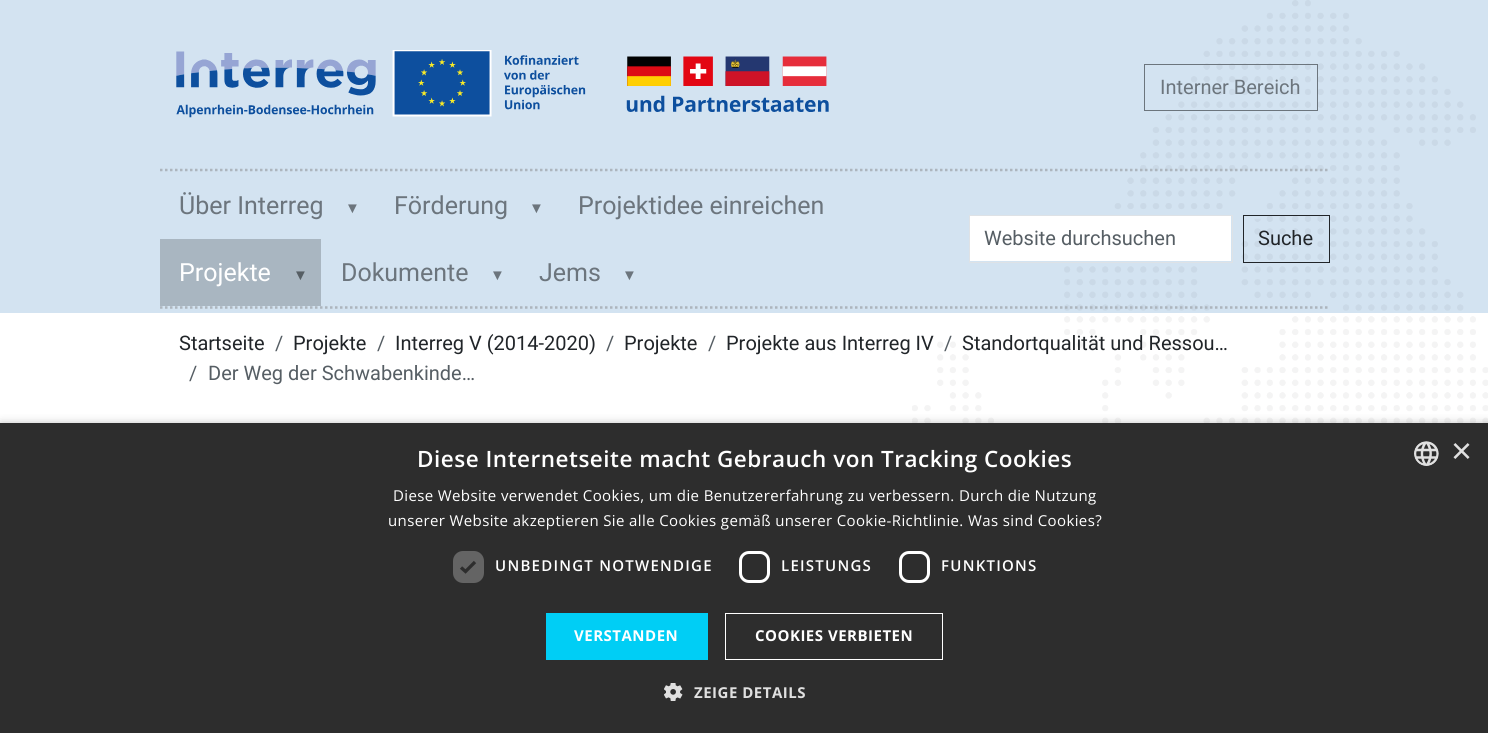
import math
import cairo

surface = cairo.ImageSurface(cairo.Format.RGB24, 1488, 733)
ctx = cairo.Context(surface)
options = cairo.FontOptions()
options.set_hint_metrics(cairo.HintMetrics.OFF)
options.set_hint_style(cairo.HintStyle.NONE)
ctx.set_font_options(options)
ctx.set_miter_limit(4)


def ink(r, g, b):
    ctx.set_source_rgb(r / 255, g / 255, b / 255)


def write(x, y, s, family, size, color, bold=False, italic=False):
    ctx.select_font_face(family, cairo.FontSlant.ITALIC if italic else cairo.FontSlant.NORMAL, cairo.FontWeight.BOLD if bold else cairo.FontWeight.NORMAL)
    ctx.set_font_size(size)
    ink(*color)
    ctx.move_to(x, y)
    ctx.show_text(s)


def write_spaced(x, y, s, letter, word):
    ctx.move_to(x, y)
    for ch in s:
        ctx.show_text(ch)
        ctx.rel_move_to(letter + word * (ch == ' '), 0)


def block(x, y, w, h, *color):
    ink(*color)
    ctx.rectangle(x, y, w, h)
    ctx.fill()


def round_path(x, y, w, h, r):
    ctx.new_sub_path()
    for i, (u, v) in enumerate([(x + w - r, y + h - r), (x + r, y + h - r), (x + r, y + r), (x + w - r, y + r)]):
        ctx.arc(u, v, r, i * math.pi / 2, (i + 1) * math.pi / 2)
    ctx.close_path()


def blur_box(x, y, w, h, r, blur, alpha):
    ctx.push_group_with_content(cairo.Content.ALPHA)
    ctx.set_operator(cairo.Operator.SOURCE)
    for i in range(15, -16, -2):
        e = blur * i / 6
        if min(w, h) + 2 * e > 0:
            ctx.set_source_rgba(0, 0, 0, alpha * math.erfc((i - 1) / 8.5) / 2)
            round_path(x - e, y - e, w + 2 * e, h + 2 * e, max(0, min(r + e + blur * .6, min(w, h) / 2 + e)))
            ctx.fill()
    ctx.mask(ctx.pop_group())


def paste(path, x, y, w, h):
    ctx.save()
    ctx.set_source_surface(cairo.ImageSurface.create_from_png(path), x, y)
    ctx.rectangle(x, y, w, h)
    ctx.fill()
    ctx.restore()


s1 = dict(family="Roboto", size=20, color=(108, 117, 125))
s2 = dict(family="Roboto", size=25, color=(108, 117, 125))
s3 = dict(family="Liberation Sans", size=15, color=(108, 117, 125))
s4 = dict(family="Roboto", size=25, color=(255, 255, 255))
s5 = dict(family="Liberation Sans", size=15, color=(86, 94, 100))
s6 = dict(family="Roboto", size=20, color=(86, 94, 100))
s7 = dict(family="Roboto", size=20, color=(33, 37, 41))
s8 = dict(family="Liberation Sans", size=36, color=(224, 224, 224))

ink(255, 255, 255)
ctx.paint()
block(0, 0, 1488, 313, 211, 227, 241)
block(160, 239, 161, 67, 169, 182, 193)
paste("pic1.png", 912, 0, 576, 423)
paste("pic2.png", 176, 50, 653, 68)
ctx.rectangle(1144.5, 64.5, 173, 46)
ink(108, 117, 125)
ctx.set_line_width(1)
ctx.stroke()
write(1160, 94, "Interner Bereich", **s1)
ctx.new_path()
ctx.move_to(160, 170)
ctx.line_to(1330, 170)
ink(173, 181, 189)
ctx.set_line_width(2.5)
ctx.set_dash([2.5, 2.5])
ctx.stroke()
ctx.new_path()
ctx.move_to(160, 307.5)
ctx.line_to(1330, 307.5)
ctx.stroke()
write(179, 214, "Über Interreg", **s2)
write(345, 213, "▼", **s3)
write(394, 214, "Förderung", **s2)
write(529, 213, "▼", **s3)
write(578, 214, "Projektidee einreichen", **s2)
write(179, 281, "Projekte", **s4)
write(293, 280, "▼", **s5)
write(341, 281, "Dokumente", **s2)
write(490, 280, "▼", **s3)
write(539, 281, "Jems", **s2)
write(622, 280, "▼", **s3)
block(970, 216, 261, 45, 255, 255, 255)
ctx.rectangle(969.5, 215.5, 263, 47)
ink(222, 226, 230)
ctx.set_line_width(1)
ctx.set_dash([])
ctx.stroke()
write(984, 245, "Website durchsuchen", **s6)
ctx.rectangle(1243.5, 215.5, 86, 47)
ink(33, 37, 41)
ctx.stroke()
write(1258, 245, "Suche", **s7)
write(179, 350, "Startseite", **s7)
write(275, 350, "/", **s6)
write(293, 350, "Projekte", **s7)
write(377, 350, "/", **s6)
write(395, 350, "Interreg V (2014-2020)", **s7)
write(606, 350, "/", **s6)
write(624, 350, "Projekte", **s7)
write(708, 350, "/", **s6)
write(726, 350, "Projekte aus Interreg IV", **s7)
write(944, 350, "/", **s6)
write(962, 350, "Standortqualität und Ressou…", **s7)
write(189, 380, "/", **s6)
write(208, 380, "Der Weg der Schwabenkinde…", **s6)
ink(0, 0, 0)
blur_box(1, 425, 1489, 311, 0, 5, 0.35)
block(0, 423, 1488, 310, 45, 45, 45)
ctx.select_font_face("Open Sans SemiBold")
ctx.set_font_size(22.5)
ink(255, 255, 255)
write_spaced(417, 467, "Diese Internetseite macht Gebrauch von Tracking Cookies", 0.5, 0)
paste("pic3.png", 1414, 441, 25, 25)
write(1451, 463, "×", **s8)
ctx.select_font_face("Open Sans")
ctx.set_font_size(15)
ink(255, 255, 255)
write_spaced(393, 501, "Diese Website verwendet Cookies, um die Benutzererfahrung zu verbessern. Durch die Nutzung", 0.38, 0)
write_spaced(388, 526, "unserer Website akzeptieren Sie alle Cookies gemäß unserer Cookie-Richtlinie. Was sind Cookies?", 0.38, 0)
ink(100, 100, 100)
round_path(453, 551, 31, 32, 10)
ctx.fill()
ctx.new_path()
ctx.move_to(461, 567.5)
ctx.line_to(465.5, 571.5)
ctx.line_to(475, 562)
ink(45, 45, 45)
ctx.set_line_width(3.3)
ctx.stroke()
ctx.select_font_face("Open Sans SemiBold")
ink(255, 255, 255)
write_spaced(495, 571, "UNBEDINGT NOTWENDIGE", 1.25, 0)
round_path(740.5, 552.5, 28, 29, 8.5)
ctx.set_line_width(3)
ctx.stroke()
write_spaced(781, 571, "LEISTUNGS", 1.25, 0)
round_path(900.5, 552.5, 28, 29, 8.5)
ctx.stroke()
write_spaced(941, 571, "FUNKTIONS", 1.25, 0)
block(546, 613, 162, 47, 0, 206, 245)
ctx.select_font_face("Open Sans", cairo.FontSlant.NORMAL, cairo.FontWeight.BOLD)
ink(255, 255, 255)
write_spaced(574, 641, "VERSTANDEN", 0.5, 0)
ctx.rectangle(725.5, 613.5, 217, 46)
ctx.set_line_width(1)
ctx.stroke()
write_spaced(755, 641, "COOKIES VERBIETEN", 0.5, 0)
paste("pic4.png", 664, 683, 19, 18)
ink(224, 224, 224)
write_spaced(694, 698, "ZEIGE DETAILS", 0.5, 0)
surface.write_to_png("screenshot.png")
